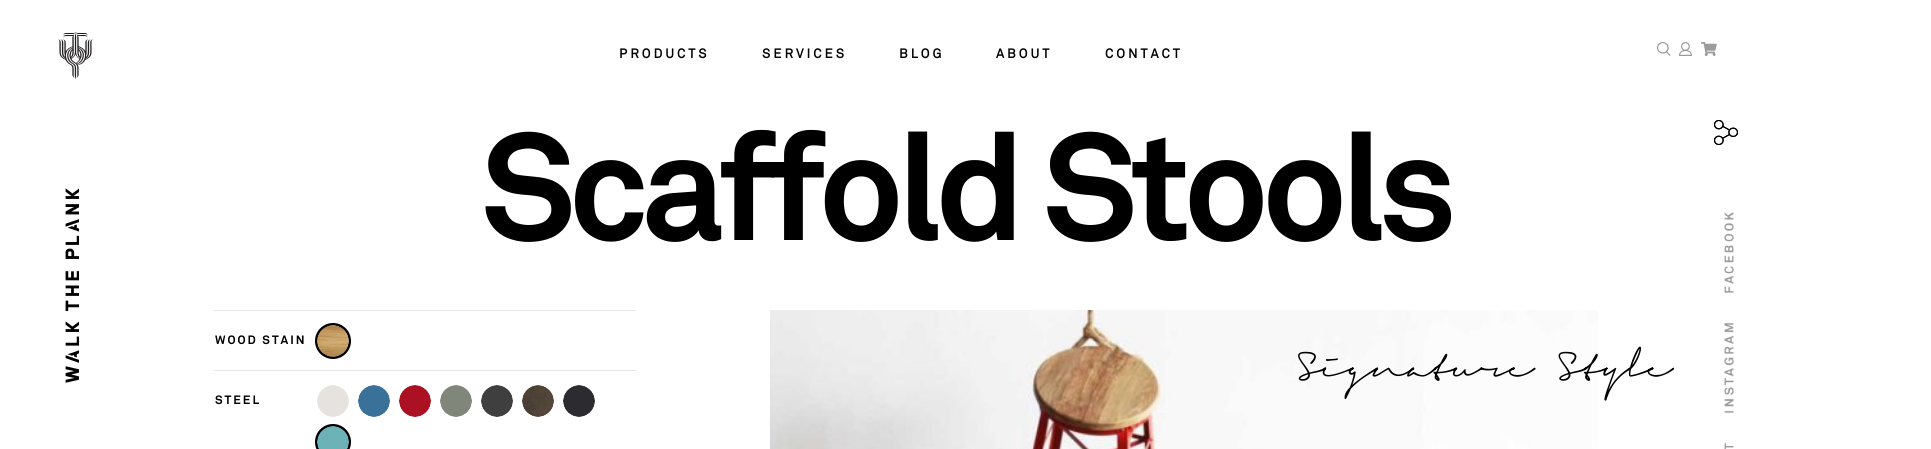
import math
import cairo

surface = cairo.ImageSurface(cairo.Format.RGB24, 1931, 449)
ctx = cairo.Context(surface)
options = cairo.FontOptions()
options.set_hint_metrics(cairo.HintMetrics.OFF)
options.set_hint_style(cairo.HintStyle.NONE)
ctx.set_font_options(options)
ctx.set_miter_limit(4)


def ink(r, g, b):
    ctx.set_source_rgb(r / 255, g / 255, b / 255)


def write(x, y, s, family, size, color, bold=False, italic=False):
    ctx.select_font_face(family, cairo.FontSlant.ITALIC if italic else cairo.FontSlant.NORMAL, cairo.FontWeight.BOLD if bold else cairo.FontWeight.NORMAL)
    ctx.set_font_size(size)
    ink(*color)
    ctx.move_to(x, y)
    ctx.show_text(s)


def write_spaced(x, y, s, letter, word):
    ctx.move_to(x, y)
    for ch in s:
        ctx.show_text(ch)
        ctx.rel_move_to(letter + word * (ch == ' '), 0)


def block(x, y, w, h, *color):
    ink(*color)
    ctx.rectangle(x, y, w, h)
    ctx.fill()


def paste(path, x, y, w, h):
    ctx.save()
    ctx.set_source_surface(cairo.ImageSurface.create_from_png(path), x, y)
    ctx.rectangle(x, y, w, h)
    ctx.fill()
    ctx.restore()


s1 = dict(family="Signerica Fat", size=30, color=(0, 0, 0))

ink(255, 255, 255)
ctx.paint()
paste("pic1.png", 58, 32, 35, 47)
paste("pic2.png", 65, 188, 15, 195)
ctx.select_font_face("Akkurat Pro", cairo.FontSlant.NORMAL, cairo.FontWeight.BOLD)
ctx.set_font_size(13)
ink(0, 0, 0)
write_spaced(619, 58, "PRODUCTS", 3, 0)
write_spaced(762, 58, "SERVICES", 3, 0)
write_spaced(899, 58, "BLOG", 3, 0)
write_spaced(996, 58, "ABOUT", 3, 0)
write_spaced(1105, 58, "CONTACT", 3, 0)
paste("pic3.png", 1657, 42, 14, 14)
paste("pic4.png", 1679, 42, 13, 14)
paste("pic5.png", 1701, 42, 16, 14)
paste("pic6.png", 1714, 120, 24, 25)
paste("pic7.png", 1724, 212, 10, 81)
paste("pic8.png", 1724, 323, 10, 90)
paste("pic9.png", 1724, 443, 10, 6)
ctx.select_font_face("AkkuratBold", cairo.FontSlant.NORMAL, cairo.FontWeight.BOLD)
ctx.set_font_size(150)
write_spaced(481, 240, "Scaffold Stools", -7, 0)
block(214, 310, 422, 1, 229, 230, 230)
block(214, 370, 422, 1, 229, 230, 230)
ctx.set_font_size(12)
ink(0, 0, 0)
write_spaced(215, 344, "WOOD STAIN", 2, 0)
ctx.new_path()
ctx.arc(333, 341, 17, 0, 2 * math.pi)
ctx.fill_preserve()
ctx.stroke()
paste("pic10.png", 317, 325, 32, 32)
write_spaced(215, 404, "STEEL", 2, 0)
paste("pic11.png", 317, 385, 32, 32)
paste("pic12.png", 358, 385, 32, 32)
paste("pic13.png", 399, 385, 32, 32)
paste("pic14.png", 440, 385, 32, 32)
paste("pic15.png", 481, 385, 32, 32)
paste("pic16.png", 522, 385, 32, 32)
paste("pic17.png", 563, 385, 32, 32)
ctx.arc(333, 442, 17, 0, 2 * math.pi)
ctx.fill_preserve()
ctx.stroke()
paste("pic18.png", 317, 426, 32, 23)
paste("pic19.png", 770, 310, 828, 139)
write(1299, 376, "Signature Style", **s1)
surface.write_to_png("screenshot.png")
